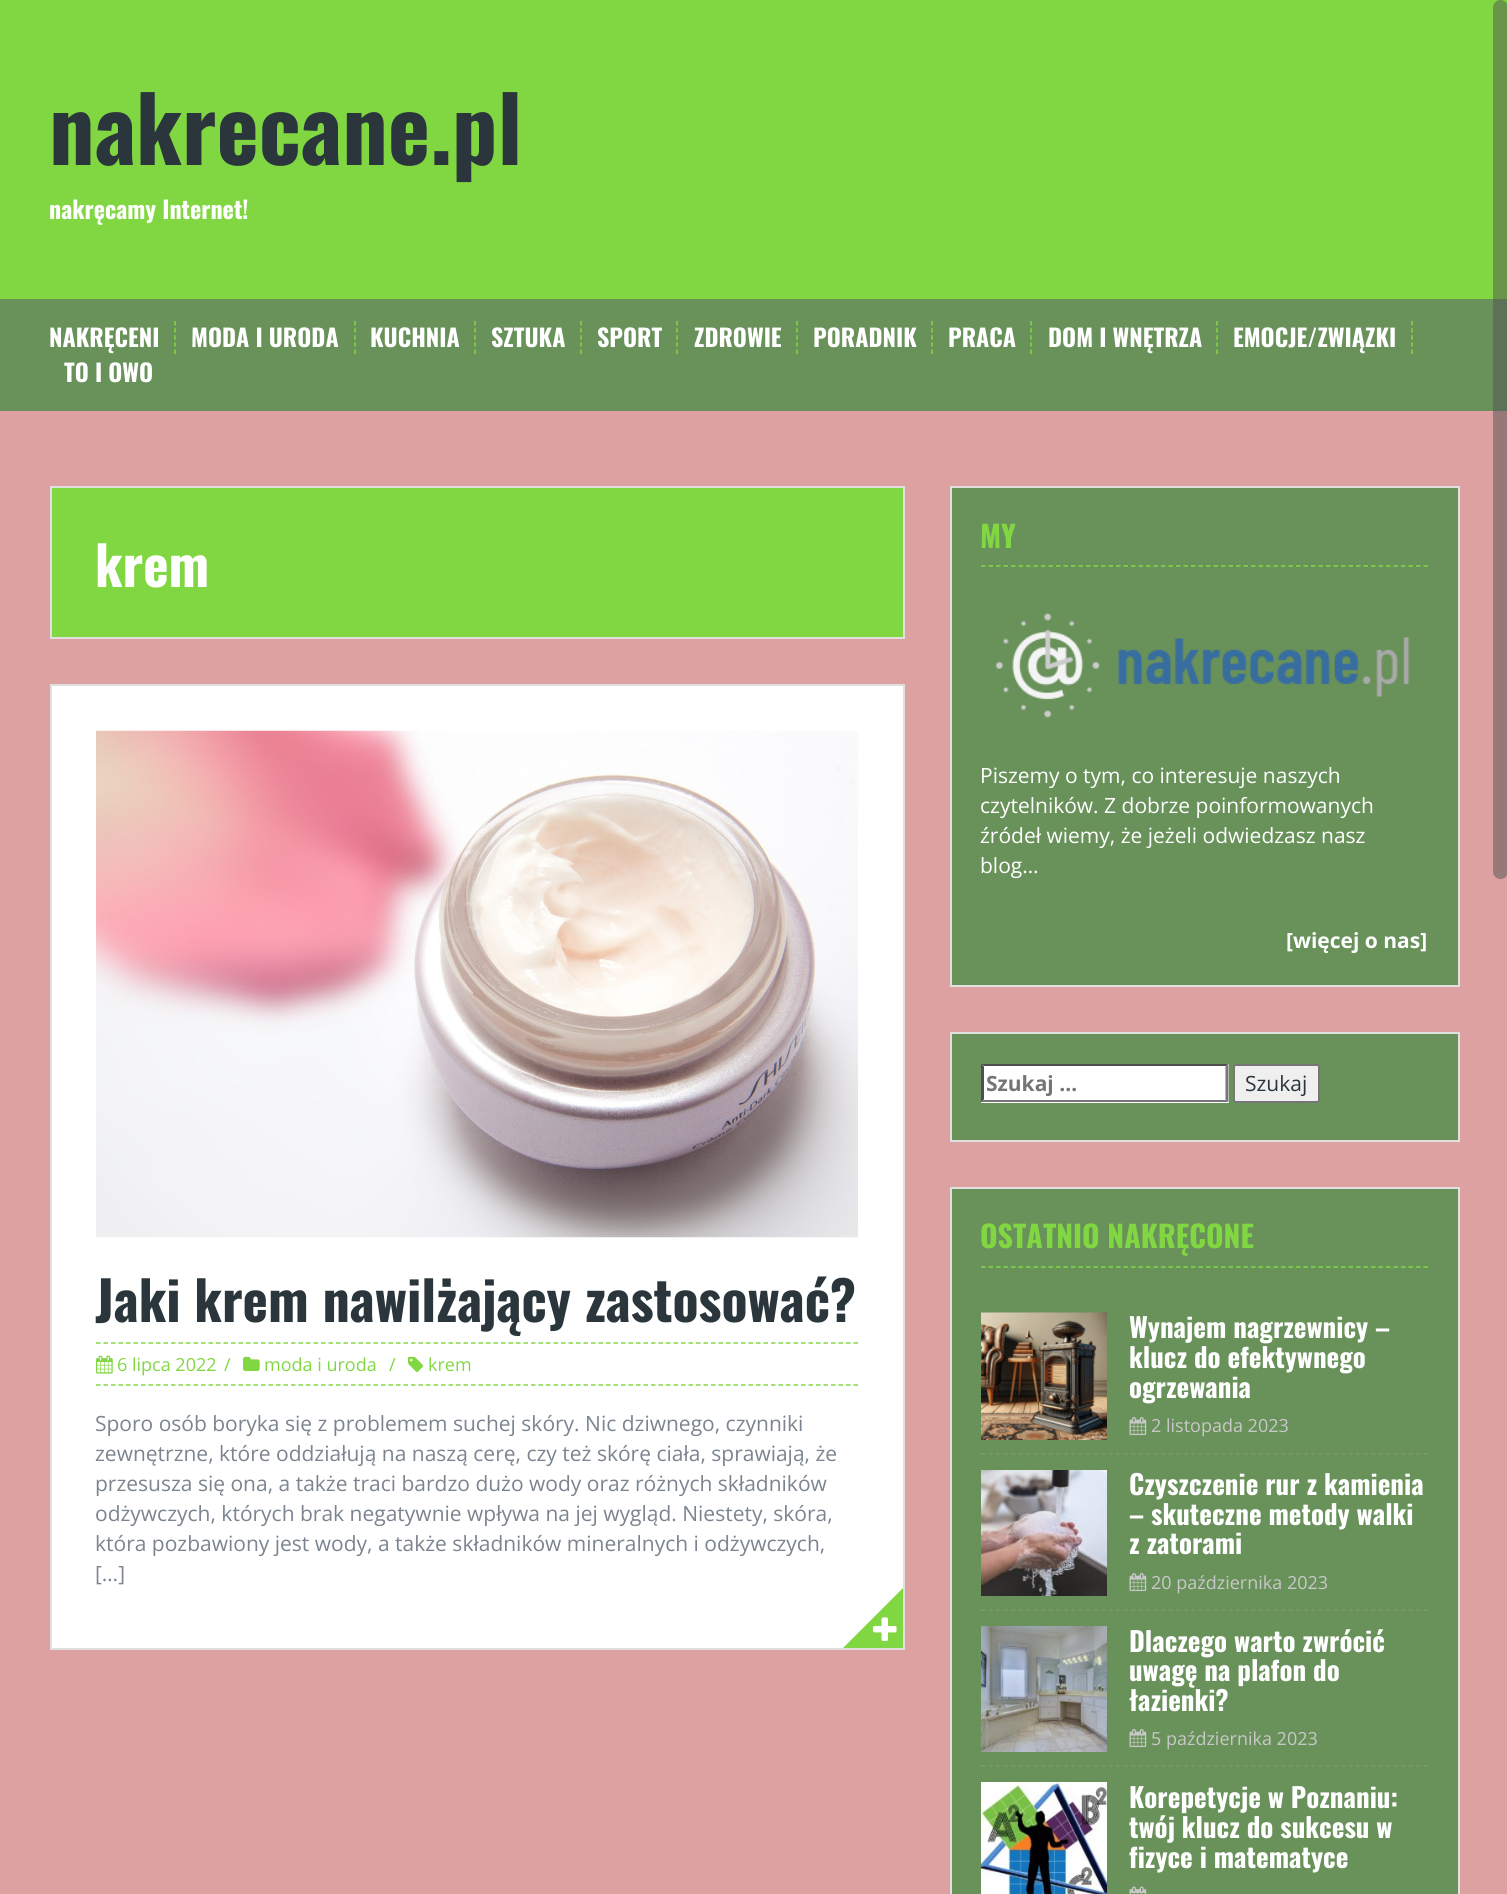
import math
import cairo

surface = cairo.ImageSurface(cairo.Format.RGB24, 1507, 1894)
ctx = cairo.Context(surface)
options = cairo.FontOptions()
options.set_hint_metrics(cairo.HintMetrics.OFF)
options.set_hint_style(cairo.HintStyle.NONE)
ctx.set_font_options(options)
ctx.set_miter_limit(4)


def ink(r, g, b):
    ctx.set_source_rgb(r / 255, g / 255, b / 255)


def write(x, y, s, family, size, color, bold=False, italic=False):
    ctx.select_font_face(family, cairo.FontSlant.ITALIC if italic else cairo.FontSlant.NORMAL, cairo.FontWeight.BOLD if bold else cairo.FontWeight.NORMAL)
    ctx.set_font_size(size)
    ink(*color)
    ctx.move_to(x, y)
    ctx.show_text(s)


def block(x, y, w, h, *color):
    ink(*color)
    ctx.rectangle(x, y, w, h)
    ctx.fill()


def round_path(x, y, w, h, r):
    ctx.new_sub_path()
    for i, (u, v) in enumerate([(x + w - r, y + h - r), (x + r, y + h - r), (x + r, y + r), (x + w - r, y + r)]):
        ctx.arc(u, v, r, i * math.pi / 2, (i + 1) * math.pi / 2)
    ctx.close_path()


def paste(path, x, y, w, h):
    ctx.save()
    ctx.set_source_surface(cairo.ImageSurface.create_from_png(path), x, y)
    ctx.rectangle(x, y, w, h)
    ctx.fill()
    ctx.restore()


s1 = dict(family="Oswald", size=90, color=(42, 54, 59), bold=True)
s2 = dict(family="Oswald", size=24, color=(255, 255, 255), bold=True)
s3 = dict(family="Oswald", size=54, color=(255, 255, 255), bold=True)
s4 = dict(family="Oswald", size=54, color=(42, 54, 59), bold=True)
s5 = dict(family="Open Sans", size=18, color=(129, 215, 66))
s6 = dict(family="Open Sans", size=21, color=(123, 132, 143))
s7 = dict(family="Oswald", size=30, color=(129, 215, 66), bold=True)
s8 = dict(family="Open Sans", size=21, color=(255, 255, 255))
s9 = dict(family="Open Sans", size=21, color=(255, 255, 255), bold=True)
s10 = dict(family="Open Sans", size=21, color=(117, 117, 117), bold=True)
s11 = dict(family="Open Sans", size=21, color=(42, 54, 59))
s12 = dict(family="Oswald", size=27, color=(255, 255, 255), bold=True)
s13 = dict(family="Open Sans", size=18, color=(200, 200, 200))

ink(221, 161, 161)
ctx.paint()
block(0, 0, 1507, 299, 129, 215, 66)
write(49, 165, "nakrecane.pl", **s1)
write(49, 219, "nakręcamy Internet!", **s2)
block(0, 299, 1507, 112, 105, 145, 90)
ctx.new_path()
ctx.move_to(175, 321)
ctx.line_to(175, 354)
ink(129, 215, 66)
ctx.set_line_width(1.5)
ctx.set_dash([4.5, 2.62])
ctx.stroke()
write(49, 347, "NAKRĘCENI", **s2)
ctx.new_path()
ctx.move_to(355, 321)
ctx.line_to(355, 354)
ink(129, 215, 66)
ctx.stroke()
write(191, 347, "MODA I URODA", **s2)
ctx.new_path()
ctx.move_to(475, 321)
ctx.line_to(475, 354)
ink(129, 215, 66)
ctx.stroke()
write(370, 347, "KUCHNIA", **s2)
ctx.new_path()
ctx.move_to(581, 321)
ctx.line_to(581, 354)
ink(129, 215, 66)
ctx.stroke()
write(491, 347, "SZTUKA", **s2)
ctx.new_path()
ctx.move_to(677, 321)
ctx.line_to(677, 354)
ink(129, 215, 66)
ctx.stroke()
write(597, 347, "SPORT", **s2)
ctx.new_path()
ctx.move_to(797, 321)
ctx.line_to(797, 354)
ink(129, 215, 66)
ctx.stroke()
write(694, 347, "ZDROWIE", **s2)
ctx.new_path()
ctx.move_to(932, 321)
ctx.line_to(932, 354)
ink(129, 215, 66)
ctx.stroke()
write(813, 347, "PORADNIK", **s2)
ctx.new_path()
ctx.move_to(1031, 321)
ctx.line_to(1031, 354)
ink(129, 215, 66)
ctx.stroke()
write(948, 347, "PRACA", **s2)
ctx.new_path()
ctx.move_to(1217, 321)
ctx.line_to(1217, 354)
ink(129, 215, 66)
ctx.stroke()
write(1048, 347, "DOM I WNĘTRZA", **s2)
ctx.new_path()
ctx.move_to(1412, 321)
ctx.line_to(1412, 354)
ink(129, 215, 66)
ctx.stroke()
write(1233, 347, "EMOCJE/ZWIĄZKI", **s2)
write(64, 382, "TO I OWO", **s2)
ink(129, 215, 66)
ctx.rectangle(51, 487, 853, 151)
ctx.fill_preserve()
ink(224, 224, 224)
ctx.set_line_width(2)
ctx.set_dash([])
ctx.stroke()
write(95, 587, "krem", **s3)
ctx.rectangle(51, 685, 853, 964)
ctx.fill_preserve()
ink(224, 224, 224)
ctx.stroke()
paste("pic1.png", 96, 730, 762, 508)
write(95, 1322, "Jaki krem nawilżający zastosować?", **s4)
ctx.new_path()
ctx.move_to(96, 1343)
ctx.line_to(858, 1343)
ink(129, 215, 66)
ctx.set_line_width(1.5)
ctx.set_dash([4.5, 3])
ctx.stroke()
ctx.new_path()
ctx.move_to(96, 1385)
ctx.line_to(858, 1385)
ctx.stroke()
paste("pic2.png", 96, 1355, 17, 19)
write(117, 1371, "6 lipca 2022", **s5)
write(224, 1371, "/", **s5)
paste("pic3.png", 243, 1356, 17, 15)
write(264, 1371, "moda i uroda", **s5)
write(389, 1371, "/", **s5)
paste("pic4.png", 408, 1356, 16, 16)
write(428, 1371, "krem", **s5)
write(95, 1431, "Sporo osób boryka się z problemem suchej skóry. Nic dziwnego, czynniki", **s6)
write(95, 1461, "zewnętrzne, które oddziałują na naszą cerę, czy też skórę ciała, sprawiają, że", **s6)
write(95, 1491, "przesusza się ona, a także traci bardzo dużo wody oraz różnych składników", **s6)
write(95, 1521, "odżywczych, których brak negatywnie wpływa na jej wygląd. Niestety, skóra,", **s6)
write(95, 1551, "która pozbawiony jest wody, a także składników mineralnych i odżywczych,", **s6)
write(95, 1581, "[…]", **s6)
ink(129, 215, 66)
ctx.new_path()
ctx.move_to(903, 1588)
ctx.line_to(903, 1648)
ctx.line_to(843, 1648)
ctx.close_path()
ctx.fill()
paste("pic5.png", 873, 1617, 24, 24)
ink(105, 145, 90)
ctx.rectangle(951, 487, 508, 499)
ctx.fill_preserve()
ink(224, 224, 224)
ctx.set_line_width(2)
ctx.set_dash([])
ctx.stroke()
ctx.new_path()
ctx.move_to(981, 566)
ctx.line_to(1428, 566)
ink(129, 215, 66)
ctx.set_line_width(1.5)
ctx.set_dash([4.5, 3])
ctx.stroke()
write(980, 548, "MY", **s7)
paste("pic6.png", 996, 613, 414, 105)
write(980, 783, "Piszemy o tym, co interesuje naszych", **s8)
write(980, 813, "czytelników. Z dobrze poinformowanych", **s8)
write(980, 843, "źródeł wiemy, że jeżeli odwiedzasz nasz", **s8)
write(980, 873, "blog…", **s8)
write(1286, 948, "[więcej o nas]", **s9)
ink(105, 145, 90)
ctx.rectangle(951, 1033, 508, 108)
ctx.fill_preserve()
ink(224, 224, 224)
ctx.set_line_width(2)
ctx.set_dash([])
ctx.stroke()
block(981, 1064, 248, 39, 255, 255, 255)
ink(79, 79, 79)
ctx.new_path()
ctx.move_to(981, 1064)
ctx.line_to(1228, 1064)
ctx.line_to(1226, 1066)
ctx.line_to(984, 1066)
ctx.close_path()
ctx.fill()
ink(118, 118, 118)
ctx.new_path()
ctx.move_to(1228.5, 1063.5)
ctx.line_to(1228.5, 1102.5)
ctx.line_to(1225.5, 1099.5)
ctx.line_to(1225.5, 1066.5)
ctx.close_path()
ctx.fill()
ctx.new_path()
ctx.move_to(1228, 1102)
ctx.line_to(981, 1102)
ctx.line_to(984, 1100)
ctx.line_to(1226, 1100)
ctx.close_path()
ctx.fill()
ink(79, 79, 79)
ctx.new_path()
ctx.move_to(981, 1102.5)
ctx.line_to(981, 1063.5)
ctx.line_to(984, 1066.5)
ctx.line_to(984, 1099.5)
ctx.close_path()
ctx.fill()
write(986, 1091, "Szukaj …", **s10)
ink(239, 239, 239)
round_path(1234, 1065, 85, 37, 2)
ctx.fill_preserve()
ink(118, 118, 118)
ctx.stroke()
write(1245, 1091, "Szukaj", **s11)
ink(105, 145, 90)
ctx.rectangle(951, 1188, 508, 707)
ctx.fill_preserve()
ink(224, 224, 224)
ctx.stroke()
ctx.new_path()
ctx.move_to(981, 1267)
ctx.line_to(1428, 1267)
ink(129, 215, 66)
ctx.set_line_width(1.5)
ctx.set_dash([4.5, 3])
ctx.stroke()
write(980, 1248, "OSTATNIO NAKRĘCONE", **s7)
paste("pic7.png", 981, 1312, 126, 128)
write(1129, 1338, "Wynajem nagrzewnicy –", **s12)
write(1129, 1368, "klucz do efektywnego", **s12)
write(1129, 1398, "ogrzewania", **s12)
paste("pic8.png", 1129, 1417, 18, 19)
write(1151, 1432, "2 listopada 2023", **s13)
ctx.new_path()
ctx.move_to(981, 1454)
ctx.line_to(1428, 1454)
ink(120, 154, 108)
ctx.stroke()
paste("pic9.png", 981, 1470, 126, 126)
write(1129, 1495, "Czyszczenie rur z kamienia", **s12)
write(1129, 1525, "– skuteczne metody walki", **s12)
write(1129, 1554, "z zatorami", **s12)
paste("pic8.png", 1129, 1573, 18, 19)
write(1151, 1589, "20 października 2023", **s13)
ctx.new_path()
ctx.move_to(981, 1610)
ctx.line_to(1428, 1610)
ink(120, 154, 108)
ctx.stroke()
paste("pic10.png", 981, 1626, 126, 126)
write(1129, 1652, "Dlaczego warto zwrócić", **s12)
write(1129, 1681, "uwagę na plafon do", **s12)
write(1129, 1711, "łazienki?", **s12)
paste("pic8.png", 1129, 1729, 18, 19)
write(1151, 1745, "5 października 2023", **s13)
ctx.new_path()
ctx.move_to(981, 1766)
ctx.line_to(1428, 1766)
ink(120, 154, 108)
ctx.stroke()
paste("pic11.png", 981, 1782, 126, 112)
write(1129, 1808, "Korepetycje w Poznaniu:", **s12)
write(1129, 1838, "twój klucz do sukcesu w", **s12)
write(1129, 1868, "fizyce i matematyce", **s12)
paste("pic12.png", 1129, 1886, 18, 8)
ctx.set_source_rgba(0.322, 0.322, 0.322, 0.5)
round_path(1493, 0, 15, 879, 7.5)
ctx.fill()
surface.write_to_png("screenshot.png")
